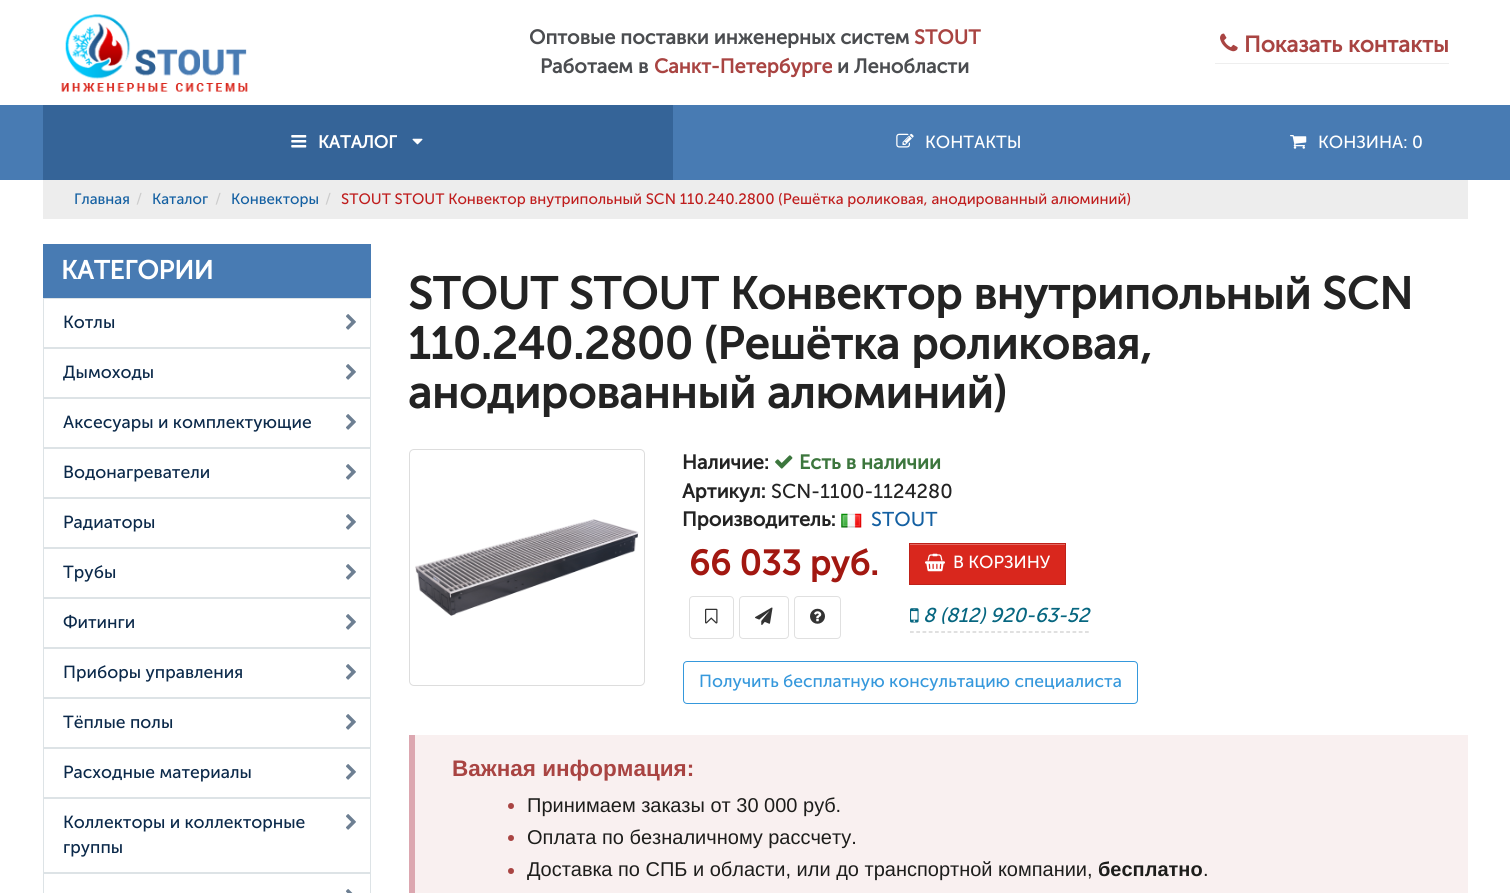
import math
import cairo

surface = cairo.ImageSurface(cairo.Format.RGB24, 1510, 893)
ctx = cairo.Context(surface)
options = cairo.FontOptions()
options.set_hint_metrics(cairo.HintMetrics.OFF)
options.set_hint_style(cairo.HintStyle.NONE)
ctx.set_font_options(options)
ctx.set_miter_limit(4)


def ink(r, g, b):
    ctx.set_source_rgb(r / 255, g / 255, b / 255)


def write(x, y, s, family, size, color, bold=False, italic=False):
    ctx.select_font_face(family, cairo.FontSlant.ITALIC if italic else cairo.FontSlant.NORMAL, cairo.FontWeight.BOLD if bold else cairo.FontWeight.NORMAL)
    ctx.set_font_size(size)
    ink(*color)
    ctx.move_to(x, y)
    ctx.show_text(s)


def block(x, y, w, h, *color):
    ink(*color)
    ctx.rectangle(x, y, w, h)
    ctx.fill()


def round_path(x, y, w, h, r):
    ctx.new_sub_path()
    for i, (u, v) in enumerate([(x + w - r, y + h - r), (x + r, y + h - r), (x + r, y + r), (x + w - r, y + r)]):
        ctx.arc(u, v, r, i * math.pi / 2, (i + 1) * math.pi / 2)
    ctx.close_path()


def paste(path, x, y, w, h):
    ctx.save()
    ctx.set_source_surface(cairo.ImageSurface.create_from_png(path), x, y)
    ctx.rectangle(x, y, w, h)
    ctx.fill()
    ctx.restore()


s1 = dict(family="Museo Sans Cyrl", size=20, color=(75, 77, 80), bold=True)
s2 = dict(family="Museo Sans Cyrl", size=20, color=(169, 68, 66), bold=True)
s3 = dict(family="Museo Sans Cyrl", size=22.5, color=(169, 68, 66), bold=True)
s4 = dict(family="Museo Sans Cyrl", size=17.5, color=(255, 255, 255), bold=True)
s5 = dict(family="Museo Sans Cyrl", size=17.5, color=(255, 255, 255))
s6 = dict(family="Museo Sans Cyrl", size=15, color=(20, 96, 162))
s7 = dict(family="Museo Sans Cyrl", size=15, color=(204, 204, 204))
s8 = dict(family="Museo Sans Cyrl", size=15, color=(191, 29, 29))
s9 = dict(family="Museo Sans Cyrl", size=26, color=(255, 255, 255), bold=True)
s10 = dict(family="Museo Sans Cyrl", size=17.5, color=(11, 41, 74))
s11 = dict(family="Museo Sans Cyrl", size=45, color=(35, 35, 35), bold=True)
s12 = dict(family="Museo Sans Cyrl", size=20, color=(35, 35, 35), bold=True)
s13 = dict(family="Museo Sans Cyrl", size=20, color=(60, 118, 61), bold=True)
s14 = dict(family="Museo Sans Cyrl", size=20, color=(35, 35, 35))
s15 = dict(family="Museo Sans Cyrl", size=20, color=(20, 96, 162))
s16 = dict(family="Museo Sans Cyrl", size=35, color=(162, 24, 17), bold=True)
s17 = dict(family="Museo Sans Cyrl", size=20, color=(6, 102, 128), italic=True)
s18 = dict(family="Museo Sans Cyrl", size=17.5, color=(53, 152, 220))
s19 = dict(family="Liberation Sans", size=22.5, color=(169, 68, 66), bold=True)
s20 = dict(family="Liberation Sans", size=20, color=(29, 29, 27))
s21 = dict(family="Liberation Sans", size=20, color=(29, 29, 27), bold=True)

ink(255, 255, 255)
ctx.paint()
paste("pic1.png", 61, 14, 187, 78)
write(529, 44, "Оптовые поставки инженерных систем", **s1)
write(914, 44, "STOUT", **s2)
write(540, 73, "Работаем в", **s1)
write(654, 73, "Санкт-Петербурге", **s2)
write(837, 73, "и Ленобласти", **s1)
block(1215, 63, 234, 1, 238, 238, 238)
paste("pic2.png", 1220, 33, 18, 19)
write(1244, 52, "Показать контакты", **s3)
block(0, 105, 1510, 75, 72, 123, 179)
block(43, 105, 630, 75, 53, 100, 152)
paste("pic3.png", 291, 135, 16, 13)
write(318, 148, "КАТАЛОГ", **s4)
paste("pic4.png", 412, 138, 11, 7)
paste("pic5.png", 896, 133, 18, 15)
write(925, 148, "КОНТАКТЫ", **s5)
paste("pic6.png", 1290, 135, 17, 14)
write(1318, 148, "КОНЗИНА: 0", **s5)
block(43, 180, 1425, 39, 237, 237, 237)
write(74, 204, "Главная", **s6)
write(136, 204, "/", **s7)
write(152, 204, "Каталог", **s6)
write(215, 204, "/", **s7)
write(231, 204, "Конвекторы", **s6)
write(325, 204, "/", **s7)
write(341, 204, "STOUT STOUT Конвектор внутрипольный SCN 110.240.2800 (Решётка роликовая, анодированный алюминий)", **s8)
block(43, 244, 328, 54, 72, 123, 179)
write(61, 279, "КАТЕГОРИИ", **s9)
ctx.rectangle(43.5, 298.5, 327, 49)
ink(221, 227, 230)
ctx.set_line_width(1)
ctx.stroke()
write(63, 328, "Котлы", **s10)
paste("pic7.png", 346, 314, 10, 16)
ctx.rectangle(43.5, 348.5, 327, 49)
ink(221, 227, 230)
ctx.stroke()
write(63, 378, "Дымоходы", **s10)
paste("pic7.png", 346, 364, 10, 16)
ctx.rectangle(43.5, 398.5, 327, 49)
ink(221, 227, 230)
ctx.stroke()
write(63, 428, "Аксесуары и комплектующие", **s10)
paste("pic7.png", 346, 414, 10, 16)
ctx.rectangle(43.5, 448.5, 327, 49)
ink(221, 227, 230)
ctx.stroke()
write(63, 478, "Водонагреватели", **s10)
paste("pic7.png", 346, 464, 10, 16)
ctx.rectangle(43.5, 498.5, 327, 49)
ink(221, 227, 230)
ctx.stroke()
write(63, 528, "Радиаторы", **s10)
paste("pic7.png", 346, 514, 10, 16)
ctx.rectangle(43.5, 548.5, 327, 49)
ink(221, 227, 230)
ctx.stroke()
write(63, 578, "Трубы", **s10)
paste("pic7.png", 346, 564, 10, 16)
ctx.rectangle(43.5, 598.5, 327, 49)
ink(221, 227, 230)
ctx.stroke()
write(63, 628, "Фитинги", **s10)
paste("pic7.png", 346, 614, 10, 16)
ctx.rectangle(43.5, 648.5, 327, 49)
ink(221, 227, 230)
ctx.stroke()
write(63, 678, "Приборы управления", **s10)
paste("pic7.png", 346, 664, 10, 16)
ctx.rectangle(43.5, 698.5, 327, 49)
ink(221, 227, 230)
ctx.stroke()
write(63, 728, "Тёплые полы", **s10)
paste("pic7.png", 346, 714, 10, 16)
ctx.rectangle(43.5, 748.5, 327, 49)
ink(221, 227, 230)
ctx.stroke()
write(63, 778, "Расходные материалы", **s10)
paste("pic7.png", 346, 764, 10, 16)
ctx.rectangle(43.5, 798.5, 327, 74)
ink(221, 227, 230)
ctx.stroke()
write(63, 828, "Коллекторы и коллекторные", **s10)
write(63, 853, "группы", **s10)
paste("pic7.png", 346, 814, 10, 16)
ctx.rectangle(43.5, 873.5, 327, 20)
ink(221, 227, 230)
ctx.stroke()
paste("pic8.png", 346, 889, 7, 4)
write(408, 309, "STOUT STOUT Конвектор внутрипольный SCN", **s11)
write(408, 359, "110.240.2800 (Решётка роликовая,", **s11)
write(408, 408, "анодированный алюминий)", **s11)
round_path(409.5, 449.5, 235, 236, 4.5)
ink(221, 221, 221)
ctx.stroke()
paste("pic9.png", 415, 519, 224, 97)
write(682, 469, "Наличие:", **s12)
paste("pic10.png", 775, 455, 18, 14)
write(799, 469, "Есть в наличии", **s13)
write(682, 498, "Артикул:", **s12)
write(771, 498, "SCN-1100-1124280", **s14)
write(682, 526, "Производитель:", **s12)
paste("pic11.png", 841, 513, 21, 15)
write(871, 526, "STOUT", **s15)
write(689, 575, "66 033 руб.", **s16)
block(910, 545, 155, 39, 217, 39, 29)
block(910, 544, 155, 1, 228, 104, 97)
ctx.rectangle(909.5, 543.5, 156, 41)
ink(191, 34, 26)
ctx.stroke()
paste("pic12.png", 925, 553, 20, 19)
write(953, 568, "В КОРЗИНУ", **s5)
round_path(689.5, 596.5, 44, 42, 3.5)
ink(224, 224, 224)
ctx.stroke()
paste("pic13.png", 705, 608, 13, 16)
round_path(739.5, 596.5, 49, 42, 3.5)
ctx.stroke()
paste("pic14.png", 755, 607, 18, 18)
round_path(794.5, 596.5, 46, 42, 3.5)
ctx.stroke()
paste("pic15.png", 810, 608, 15, 16)
ctx.new_path()
ctx.move_to(910, 632)
ctx.line_to(1089, 632)
ink(204, 204, 204)
ctx.set_line_width(1.2)
ctx.set_dash([3.75, 2.5])
ctx.stroke()
paste("pic16.png", 910, 608, 9, 15)
write(923, 622, "8 (812) 920-63-52", **s17)
round_path(683.5, 661.5, 454, 42, 3.5)
ink(53, 152, 220)
ctx.set_line_width(1)
ctx.set_dash([])
ctx.stroke()
write(699, 687, "Получить бесплатную консультацию специалиста", **s18)
block(415, 735, 1053, 158, 249, 240, 240)
block(409, 735, 6, 158, 220, 167, 176)
write(452, 776, "Важная информация:", **s19)
ctx.new_path()
ctx.arc(511, 806, 3, 0, 2 * math.pi)
ctx.fill()
write(527, 812, "Принимаем заказы от 30 000 руб.", **s20)
ink(169, 68, 66)
ctx.new_path()
ctx.arc(511, 838, 3, 0, 2 * math.pi)
ctx.fill()
write(527, 844, "Оплата по безналичному рассчету.", **s20)
ink(169, 68, 66)
ctx.new_path()
ctx.arc(511, 871, 3, 0, 2 * math.pi)
ctx.fill()
write(527, 876, "Доставка по СПБ и области, или до транспортной компании,", **s20)
write(1098, 876, "бесплатно", **s21)
write(1203, 876, ".", **s20)
surface.write_to_png("screenshot.png")
